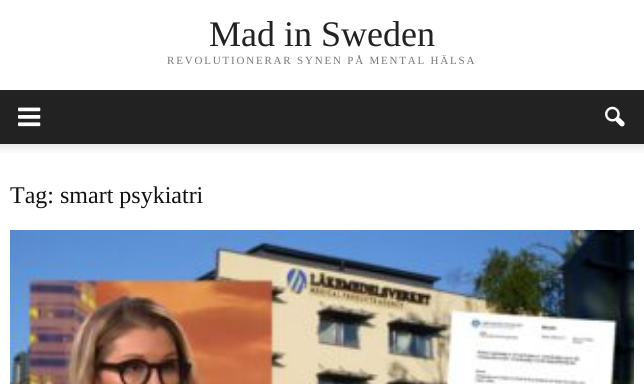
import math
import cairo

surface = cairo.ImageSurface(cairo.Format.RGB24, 644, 384)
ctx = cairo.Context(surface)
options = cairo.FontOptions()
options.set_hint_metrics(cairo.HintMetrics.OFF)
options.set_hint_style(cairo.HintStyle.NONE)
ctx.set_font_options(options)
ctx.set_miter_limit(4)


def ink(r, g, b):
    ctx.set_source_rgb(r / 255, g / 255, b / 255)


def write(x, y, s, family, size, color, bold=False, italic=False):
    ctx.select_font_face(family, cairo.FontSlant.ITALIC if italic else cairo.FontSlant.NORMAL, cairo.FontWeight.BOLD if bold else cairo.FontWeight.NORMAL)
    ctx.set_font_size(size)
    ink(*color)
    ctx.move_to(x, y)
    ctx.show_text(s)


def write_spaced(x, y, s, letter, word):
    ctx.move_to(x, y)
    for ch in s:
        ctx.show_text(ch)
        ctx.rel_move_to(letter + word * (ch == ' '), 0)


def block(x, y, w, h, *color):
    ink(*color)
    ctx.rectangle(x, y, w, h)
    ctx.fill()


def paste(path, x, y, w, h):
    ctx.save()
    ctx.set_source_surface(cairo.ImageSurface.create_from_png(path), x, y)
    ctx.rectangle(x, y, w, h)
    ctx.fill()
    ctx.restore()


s1 = dict(family="Liberation Serif", size=36, color=(34, 34, 34))
s2 = dict(family="Liberation Serif", size=24, color=(17, 17, 17))

ink(255, 255, 255)
ctx.paint()
write(209, 46, "Mad in Sweden", **s1)
ctx.set_font_size(11)
ink(119, 119, 119)
write_spaced(167, 64, "REVOLUTIONERAR SYNEN PÅ MENTAL HÄLSA", 1.8, 0)
block(0, 90, 644, 54, 34, 34, 34)
paste("pic1.png", 18, 107, 23, 20)
paste("pic2.png", 605, 106, 20, 21)
paste("pic3.png", 0, 144, 644, 9)
write(10, 203, "Tag: smart psykiatri", **s2)
paste("pic4.png", 10, 230, 624, 154)
surface.write_to_png("screenshot.png")
